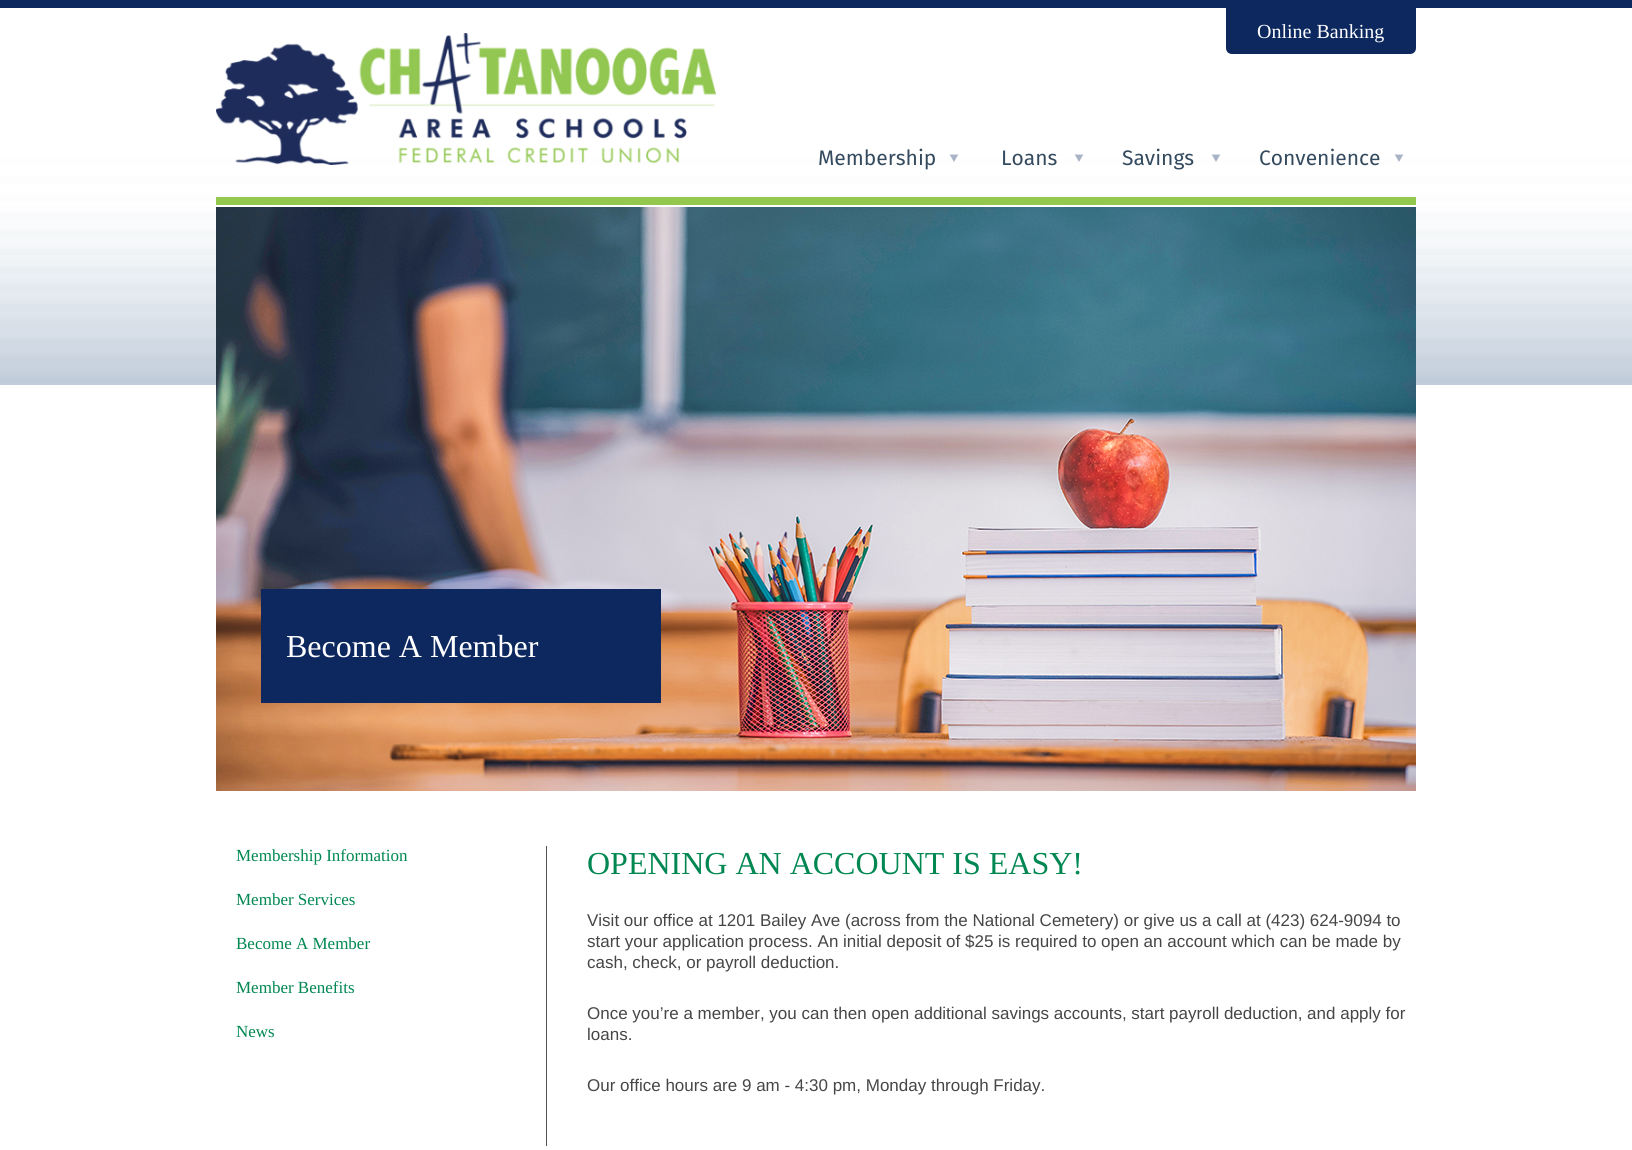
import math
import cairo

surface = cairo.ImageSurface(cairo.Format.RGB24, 1632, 1150)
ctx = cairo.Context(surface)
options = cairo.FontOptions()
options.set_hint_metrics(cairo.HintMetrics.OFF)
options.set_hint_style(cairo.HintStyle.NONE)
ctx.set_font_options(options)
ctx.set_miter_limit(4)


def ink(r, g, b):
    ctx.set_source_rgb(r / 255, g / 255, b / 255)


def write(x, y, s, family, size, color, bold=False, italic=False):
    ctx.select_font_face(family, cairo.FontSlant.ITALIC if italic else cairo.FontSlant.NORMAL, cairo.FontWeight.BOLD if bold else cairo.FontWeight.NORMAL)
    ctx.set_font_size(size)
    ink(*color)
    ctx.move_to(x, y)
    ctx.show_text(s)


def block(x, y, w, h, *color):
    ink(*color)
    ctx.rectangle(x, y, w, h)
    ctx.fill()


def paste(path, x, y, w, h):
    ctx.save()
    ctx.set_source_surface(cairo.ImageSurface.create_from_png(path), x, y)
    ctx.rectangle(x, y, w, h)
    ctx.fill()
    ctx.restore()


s1 = dict(family="Liberation Serif", size=20, color=(255, 255, 255))
s2 = dict(family="Fira Sans", size=21, color=(52, 74, 94))
s3 = dict(family="Liberation Serif", size=32, color=(255, 255, 255))
s4 = dict(family="Liberation Serif", size=17, color=(0, 135, 82))
s5 = dict(family="Liberation Serif", size=32, color=(0, 135, 82))
s6 = dict(family="Liberation Sans", size=17, color=(70, 70, 70))

ink(255, 255, 255)
ctx.paint()
paste("pic1.png", 0, 0, 1632, 385)
block(216, 197, 1200, 8, 148, 199, 78)
paste("pic2.png", 216, 33, 500, 132)
ink(13, 40, 95)
ctx.new_path()
ctx.move_to(1226, 8)
ctx.line_to(1416, 8)
ctx.line_to(1416, 48)
ctx.curve_to(1416, 51.5, 1413.5, 54, 1410, 54)
ctx.line_to(1232, 54)
ctx.curve_to(1228.5, 54, 1226, 51.5, 1226, 48)
ctx.close_path()
ctx.fill()
write(1257, 38, "Online Banking", **s1)
paste("pic3.png", 949, 154, 10, 8)
write(818, 165, "Membership", **s2)
paste("pic4.png", 1074, 154, 10, 8)
write(1001, 165, "Loans", **s2)
paste("pic3.png", 1211, 154, 10, 8)
write(1122, 165, "Savings", **s2)
paste("pic4.png", 1394, 154, 10, 8)
write(1259, 165, "Convenience", **s2)
paste("pic5.png", 216, 207, 1200, 584)
block(261, 589, 400, 114, 13, 40, 95)
write(286, 657, "Become A Member", **s3)
write(236, 861, "Membership Information", **s4)
write(236, 905, "Member Services", **s4)
write(236, 949, "Become A Member", **s4)
write(236, 993, "Member Benefits", **s4)
write(236, 1037, "News", **s4)
block(546, 846, 1, 300, 85, 85, 85)
write(587, 874, "OPENING AN ACCOUNT IS EASY!", **s5)
write(587, 926, "Visit our office at 1201 Bailey Ave (across from the National Cemetery) or give us a call at (423) 624-9094 to", **s6)
write(587, 947, "start your application process. An initial deposit of $25 is required to open an account which can be made by", **s6)
write(587, 968, "cash, check, or payroll deduction.", **s6)
write(587, 1019, "Once you’re a member, you can then open additional savings accounts, start payroll deduction, and apply for", **s6)
write(587, 1040, "loans.", **s6)
write(587, 1091, "Our office hours are 9 am - 4:30 pm, Monday through Friday.", **s6)
surface.write_to_png("screenshot.png")
